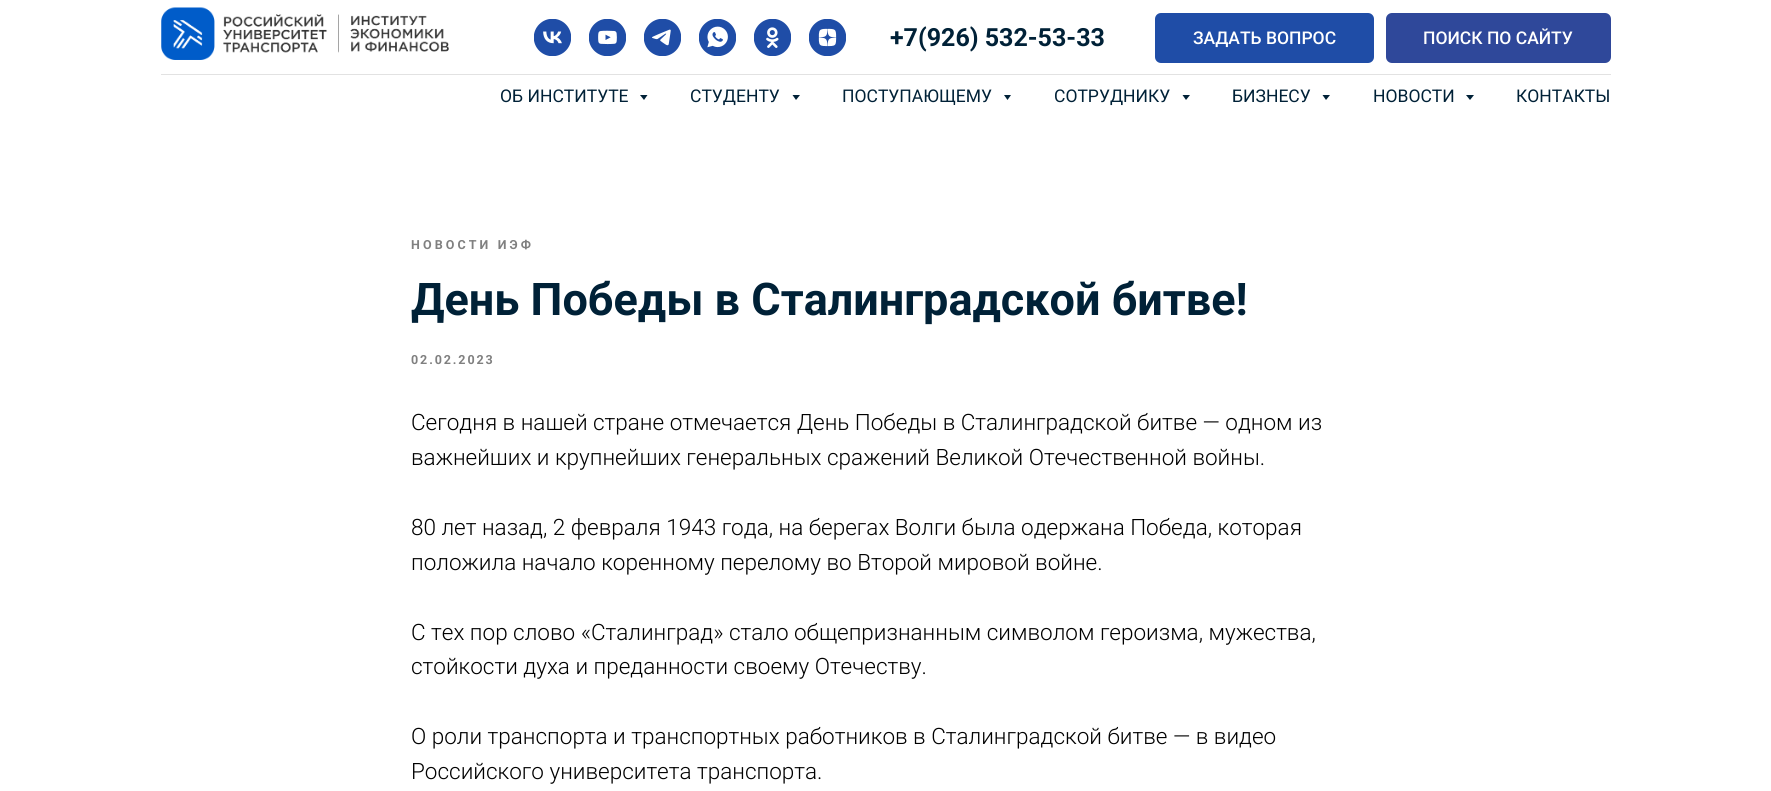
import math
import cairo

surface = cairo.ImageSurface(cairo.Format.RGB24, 1771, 791)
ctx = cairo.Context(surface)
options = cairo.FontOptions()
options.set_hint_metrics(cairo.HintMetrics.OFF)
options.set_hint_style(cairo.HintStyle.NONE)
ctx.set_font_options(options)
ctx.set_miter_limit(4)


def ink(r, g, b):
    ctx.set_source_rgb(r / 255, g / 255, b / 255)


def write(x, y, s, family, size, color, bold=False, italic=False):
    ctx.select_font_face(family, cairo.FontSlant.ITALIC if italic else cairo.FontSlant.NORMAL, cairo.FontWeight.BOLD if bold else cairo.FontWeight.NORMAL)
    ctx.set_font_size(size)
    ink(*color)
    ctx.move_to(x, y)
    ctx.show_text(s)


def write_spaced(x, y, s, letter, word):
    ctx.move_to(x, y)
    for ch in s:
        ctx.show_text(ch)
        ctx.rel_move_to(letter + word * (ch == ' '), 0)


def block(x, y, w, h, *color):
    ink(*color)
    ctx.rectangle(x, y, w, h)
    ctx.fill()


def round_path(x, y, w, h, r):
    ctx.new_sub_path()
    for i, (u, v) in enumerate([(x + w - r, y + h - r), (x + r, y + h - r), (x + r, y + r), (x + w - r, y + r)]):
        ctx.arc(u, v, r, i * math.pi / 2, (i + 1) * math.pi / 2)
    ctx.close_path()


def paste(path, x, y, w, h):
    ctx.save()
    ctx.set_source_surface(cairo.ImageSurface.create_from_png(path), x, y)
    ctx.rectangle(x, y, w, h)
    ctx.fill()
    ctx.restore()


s1 = dict(family="Roboto", size=25, color=(0, 33, 55), bold=True)
s2 = dict(family="Roboto Medium", size=17.5, color=(255, 255, 255))
s3 = dict(family="Roboto", size=17.5, color=(0, 33, 55))
s4 = dict(family="Roboto", size=45, color=(0, 33, 55), bold=True)
s5 = dict(family="Roboto Light", size=22.5, color=(0, 0, 0))

ink(255, 255, 255)
ctx.paint()
paste("pic1.png", 161, 7, 288, 53)
paste("pic2.png", 534, 19, 37, 37)
paste("pic3.png", 589, 19, 37, 37)
paste("pic4.png", 644, 19, 37, 37)
paste("pic5.png", 699, 19, 37, 37)
paste("pic6.png", 754, 19, 37, 37)
paste("pic7.png", 809, 19, 37, 37)
write(890, 46, "+7(926) 532-53-33", **s1)
ink(31, 77, 167)
round_path(1155, 13, 219, 50, 6)
ctx.fill()
write(1193, 44, "ЗАДАТЬ ВОПРОС", **s2)
ink(47, 72, 154)
round_path(1386, 13, 225, 50, 6)
ctx.fill()
write(1423, 44, "ПОИСК ПО САЙТУ", **s2)
block(161, 74, 1450, 1, 226, 226, 226)
write(500, 102, "ОБ ИНСТИТУТЕ", **s3)
ctx.new_path()
ctx.move_to(640, 95)
ctx.line_to(647.5, 95)
ctx.line_to(644, 100)
ctx.close_path()
ctx.fill()
write(690, 102, "СТУДЕНТУ", **s3)
ctx.new_path()
ctx.move_to(792.5, 95)
ctx.line_to(800, 95)
ctx.line_to(796, 100)
ctx.close_path()
ctx.fill()
write(842, 102, "ПОСТУПАЮЩЕМУ", **s3)
ctx.new_path()
ctx.move_to(1004, 95)
ctx.line_to(1011, 95)
ctx.line_to(1007.5, 100)
ctx.close_path()
ctx.fill()
write(1054, 102, "СОТРУДНИКУ", **s3)
ctx.new_path()
ctx.move_to(1182.5, 95)
ctx.line_to(1190, 95)
ctx.line_to(1186, 100)
ctx.close_path()
ctx.fill()
write(1232, 102, "БИЗНЕСУ", **s3)
ctx.new_path()
ctx.move_to(1322.5, 95)
ctx.line_to(1330, 95)
ctx.line_to(1326, 100)
ctx.close_path()
ctx.fill()
write(1373, 102, "НОВОСТИ", **s3)
ctx.new_path()
ctx.move_to(1466, 95)
ctx.line_to(1474, 95)
ctx.line_to(1470, 100)
ctx.close_path()
ctx.fill()
write(1516, 102, "КОНТАКТЫ", **s3)
ctx.select_font_face("Roboto", cairo.FontSlant.NORMAL, cairo.FontWeight.BOLD)
ctx.set_font_size(12.5)
ink(128, 128, 128)
write_spaced(411, 249, "НОВОСТИ ИЭФ", 3.1, 0)
write(411, 315, "День Победы в Сталинградской битве!", **s4)
ctx.set_font_size(12.5)
ink(128, 128, 128)
write_spaced(411, 364, "02.02.2023", 1.9, 0)
write(411, 430, "Сегодня в нашей стране отмечается День Победы в Сталинградской битве — одном из", **s5)
write(411, 465, "важнейших и крупнейших генеральных сражений Великой Отечественной войны.", **s5)
write(411, 535, "80 лет назад, 2 февраля 1943 года, на берегах Волги была одержана Победа, которая", **s5)
write(411, 570, "положила начало коренному перелому во Второй мировой войне.", **s5)
write(411, 640, "С тех пор слово «Сталинград» стало общепризнанным символом героизма, мужества,", **s5)
write(411, 674, "стойкости духа и преданности своему Отечеству.", **s5)
write(411, 744, "О роли транспорта и транспортных работников в Сталинградской битве — в видео", **s5)
write(411, 779, "Российского университета транспорта.", **s5)
surface.write_to_png("screenshot.png")
